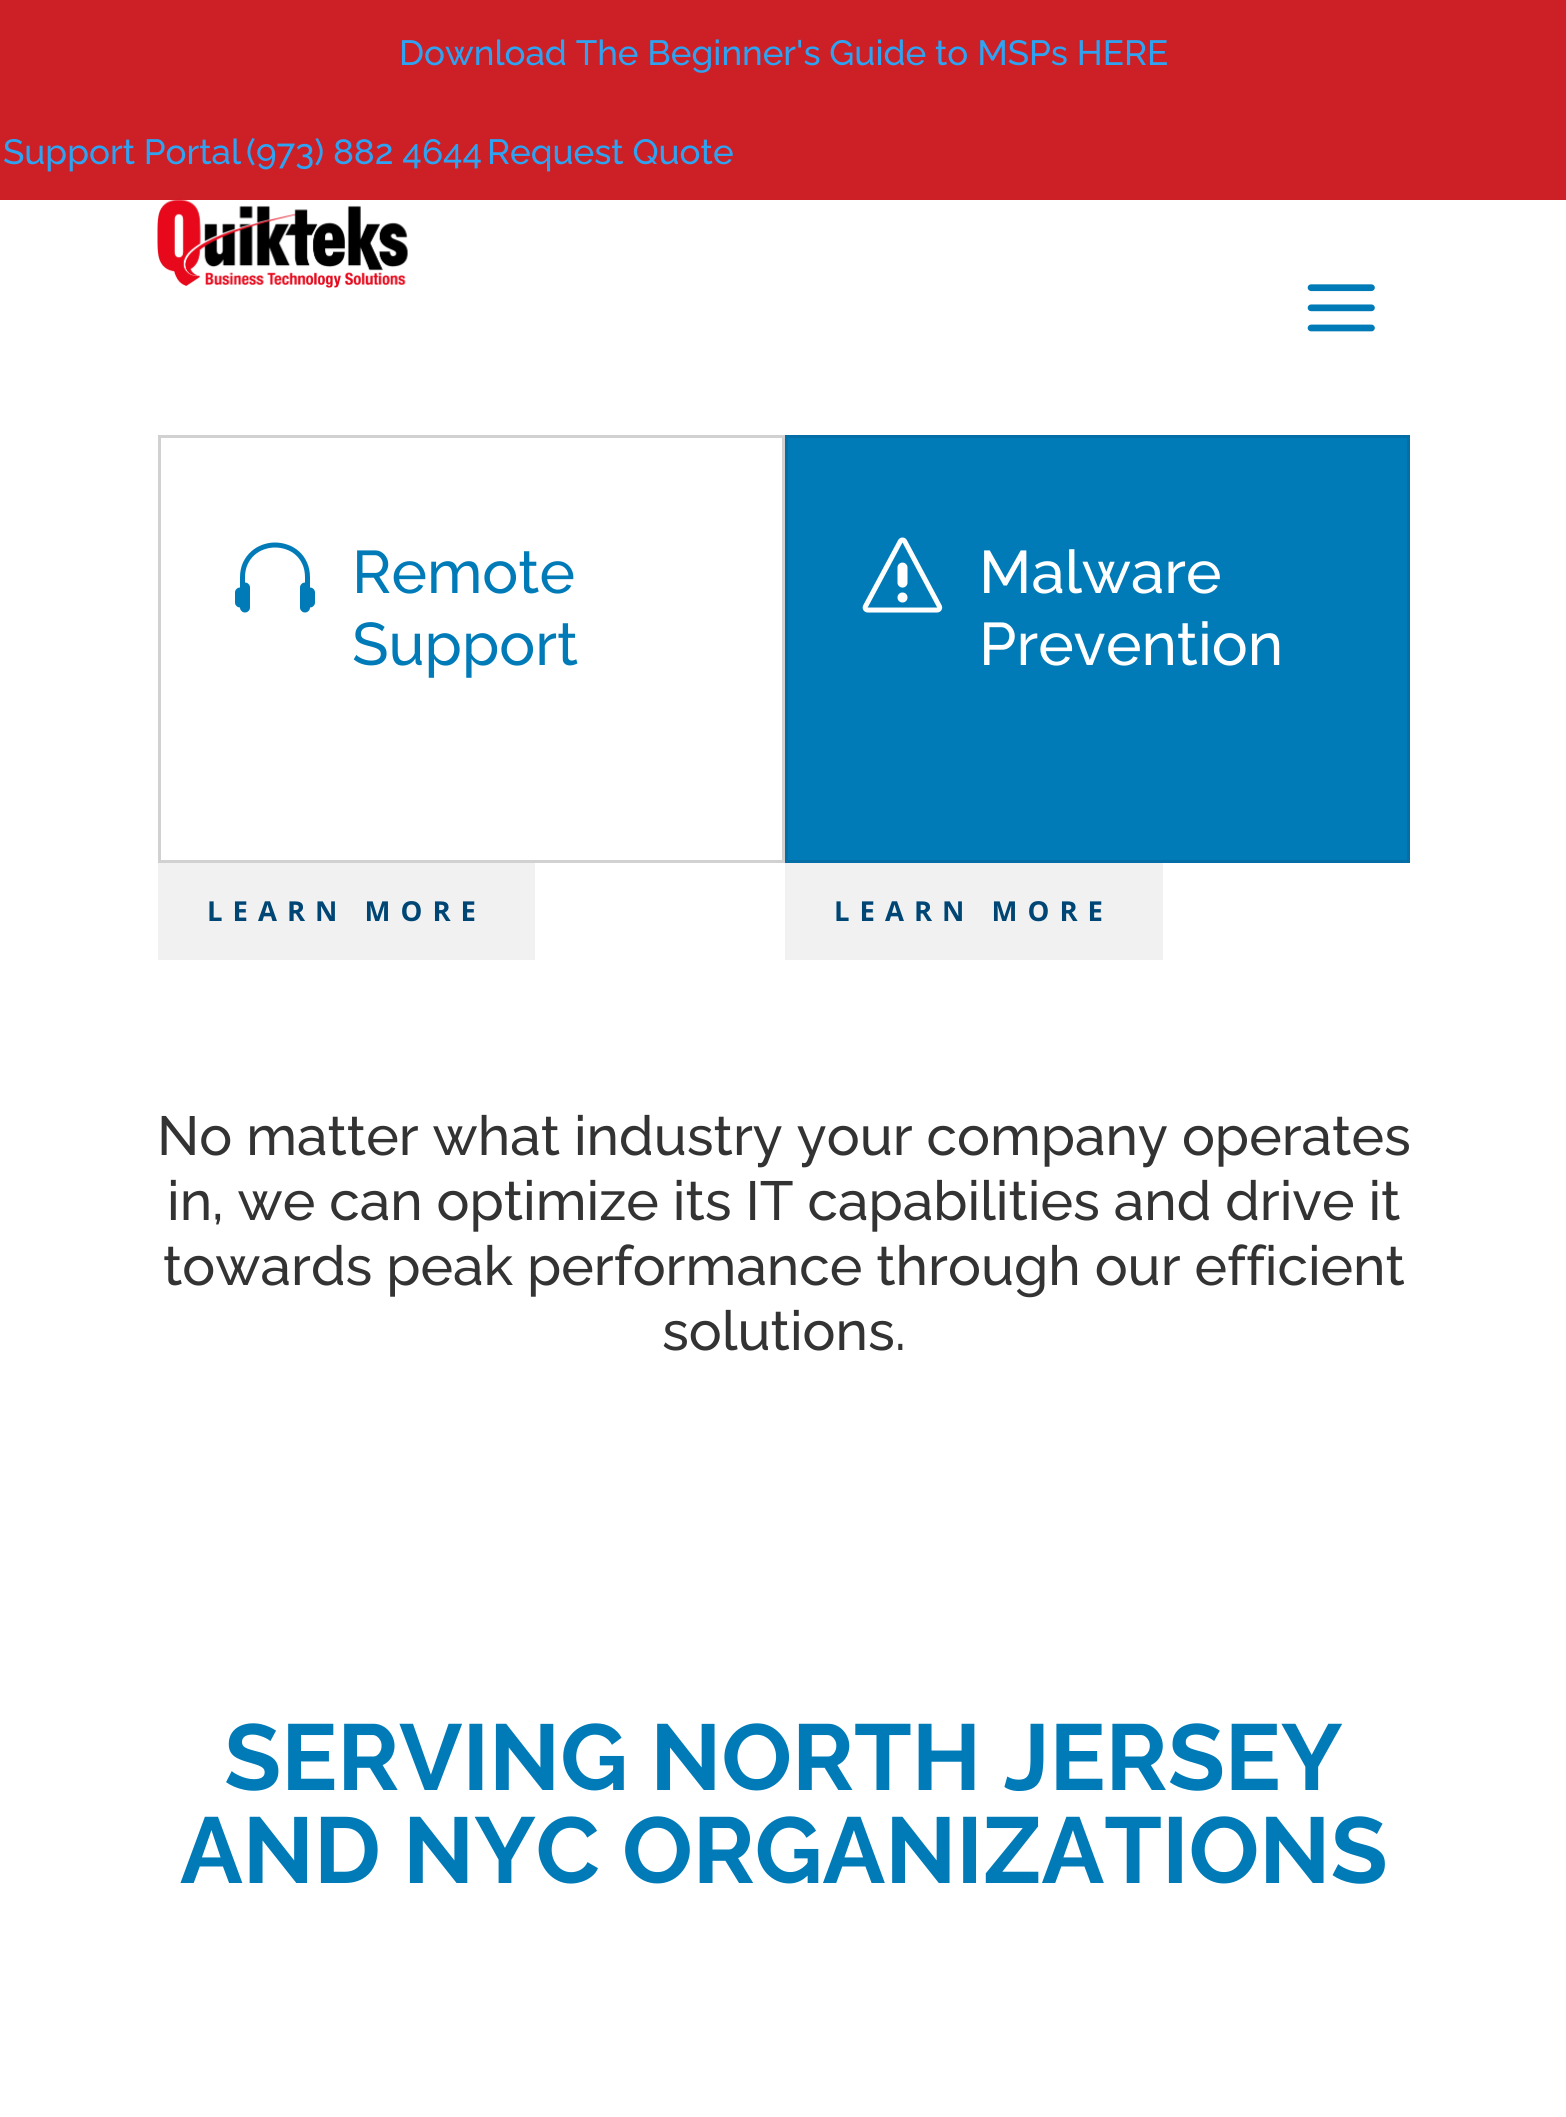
import math
import cairo

surface = cairo.ImageSurface(cairo.Format.RGB24, 1566, 2117)
ctx = cairo.Context(surface)
options = cairo.FontOptions()
options.set_hint_metrics(cairo.HintMetrics.OFF)
options.set_hint_style(cairo.HintStyle.NONE)
ctx.set_font_options(options)
ctx.set_miter_limit(4)


def ink(r, g, b):
    ctx.set_source_rgb(r / 255, g / 255, b / 255)


def write(x, y, s, family, size, color, bold=False, italic=False):
    ctx.select_font_face(family, cairo.FontSlant.ITALIC if italic else cairo.FontSlant.NORMAL, cairo.FontWeight.BOLD if bold else cairo.FontWeight.NORMAL)
    ctx.set_font_size(size)
    ink(*color)
    ctx.move_to(x, y)
    ctx.show_text(s)


def write_spaced(x, y, s, letter, word):
    ctx.move_to(x, y)
    for ch in s:
        ctx.show_text(ch)
        ctx.rel_move_to(letter + word * (ch == ' '), 0)


def block(x, y, w, h, *color):
    ink(*color)
    ctx.rectangle(x, y, w, h)
    ctx.fill()


def paste(path, x, y, w, h):
    ctx.save()
    ctx.set_source_surface(cairo.ImageSurface.create_from_png(path), x, y)
    ctx.rectangle(x, y, w, h)
    ctx.fill()
    ctx.restore()


s1 = dict(family="Raleway Thin", size=35, color=(46, 163, 242))
s2 = dict(family="Raleway Thin", size=60, color=(0, 123, 184))
s3 = dict(family="Raleway Thin", size=60, color=(255, 255, 255))
s4 = dict(family="Raleway Thin", size=55, color=(51, 51, 51))
s5 = dict(family="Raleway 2 Thin", size=93.3, color=(0, 123, 184))

ink(255, 255, 255)
ctx.paint()
block(0, 0, 1566, 200, 205, 32, 38)
write(399, 65, "Download The Beginner's Guide to MSPs HERE", **s1)
write(3, 164, "Support Portal", **s1)
write(246, 164, "(973) 882 4644", **s1)
write(487, 164, "Request Quote", **s1)
paste("pic1.png", 157, 199, 251, 89)
paste("pic2.png", 1307, 284, 68, 48)
ctx.rectangle(159.5, 436.5, 624, 425)
ink(209, 209, 209)
ctx.set_line_width(3)
ctx.stroke()
paste("pic3.png", 235, 542, 80, 71)
write(352, 593, "Remote", **s2)
write(352, 665, "Support", **s2)
block(158, 863, 377, 97, 241, 241, 241)
ctx.select_font_face("Open Sans", cairo.FontSlant.NORMAL, cairo.FontWeight.BOLD)
ctx.set_font_size(27.5)
ink(0, 70, 117)
write_spaced(207, 921, "LEARN MORE", 10, 0)
ink(0, 123, 184)
ctx.rectangle(786.5, 436.5, 622, 425)
ctx.fill_preserve()
ink(4, 110, 166)
ctx.stroke()
paste("pic4.png", 862, 537, 81, 76)
write(979, 593, "Malware", **s3)
write(979, 665, "Prevention", **s3)
block(785, 863, 378, 97, 241, 241, 241)
ctx.select_font_face("Open Sans", cairo.FontSlant.NORMAL, cairo.FontWeight.BOLD)
ctx.set_font_size(27.5)
ink(0, 70, 117)
write_spaced(834, 921, "LEARN MORE", 10, 0)
write(157, 1155, "No matter what industry your company operates", **s4)
write(167, 1220, "in, we can optimize its IT capabilities and drive it", **s4)
write(163, 1285, "towards peak performance through our efficient", **s4)
write(662, 1350, "solutions.", **s4)
write(224, 1790, "SERVING NORTH JERSEY", **s5)
write(180, 1883, "AND NYC ORGANIZATIONS", **s5)
surface.write_to_png("screenshot.png")
